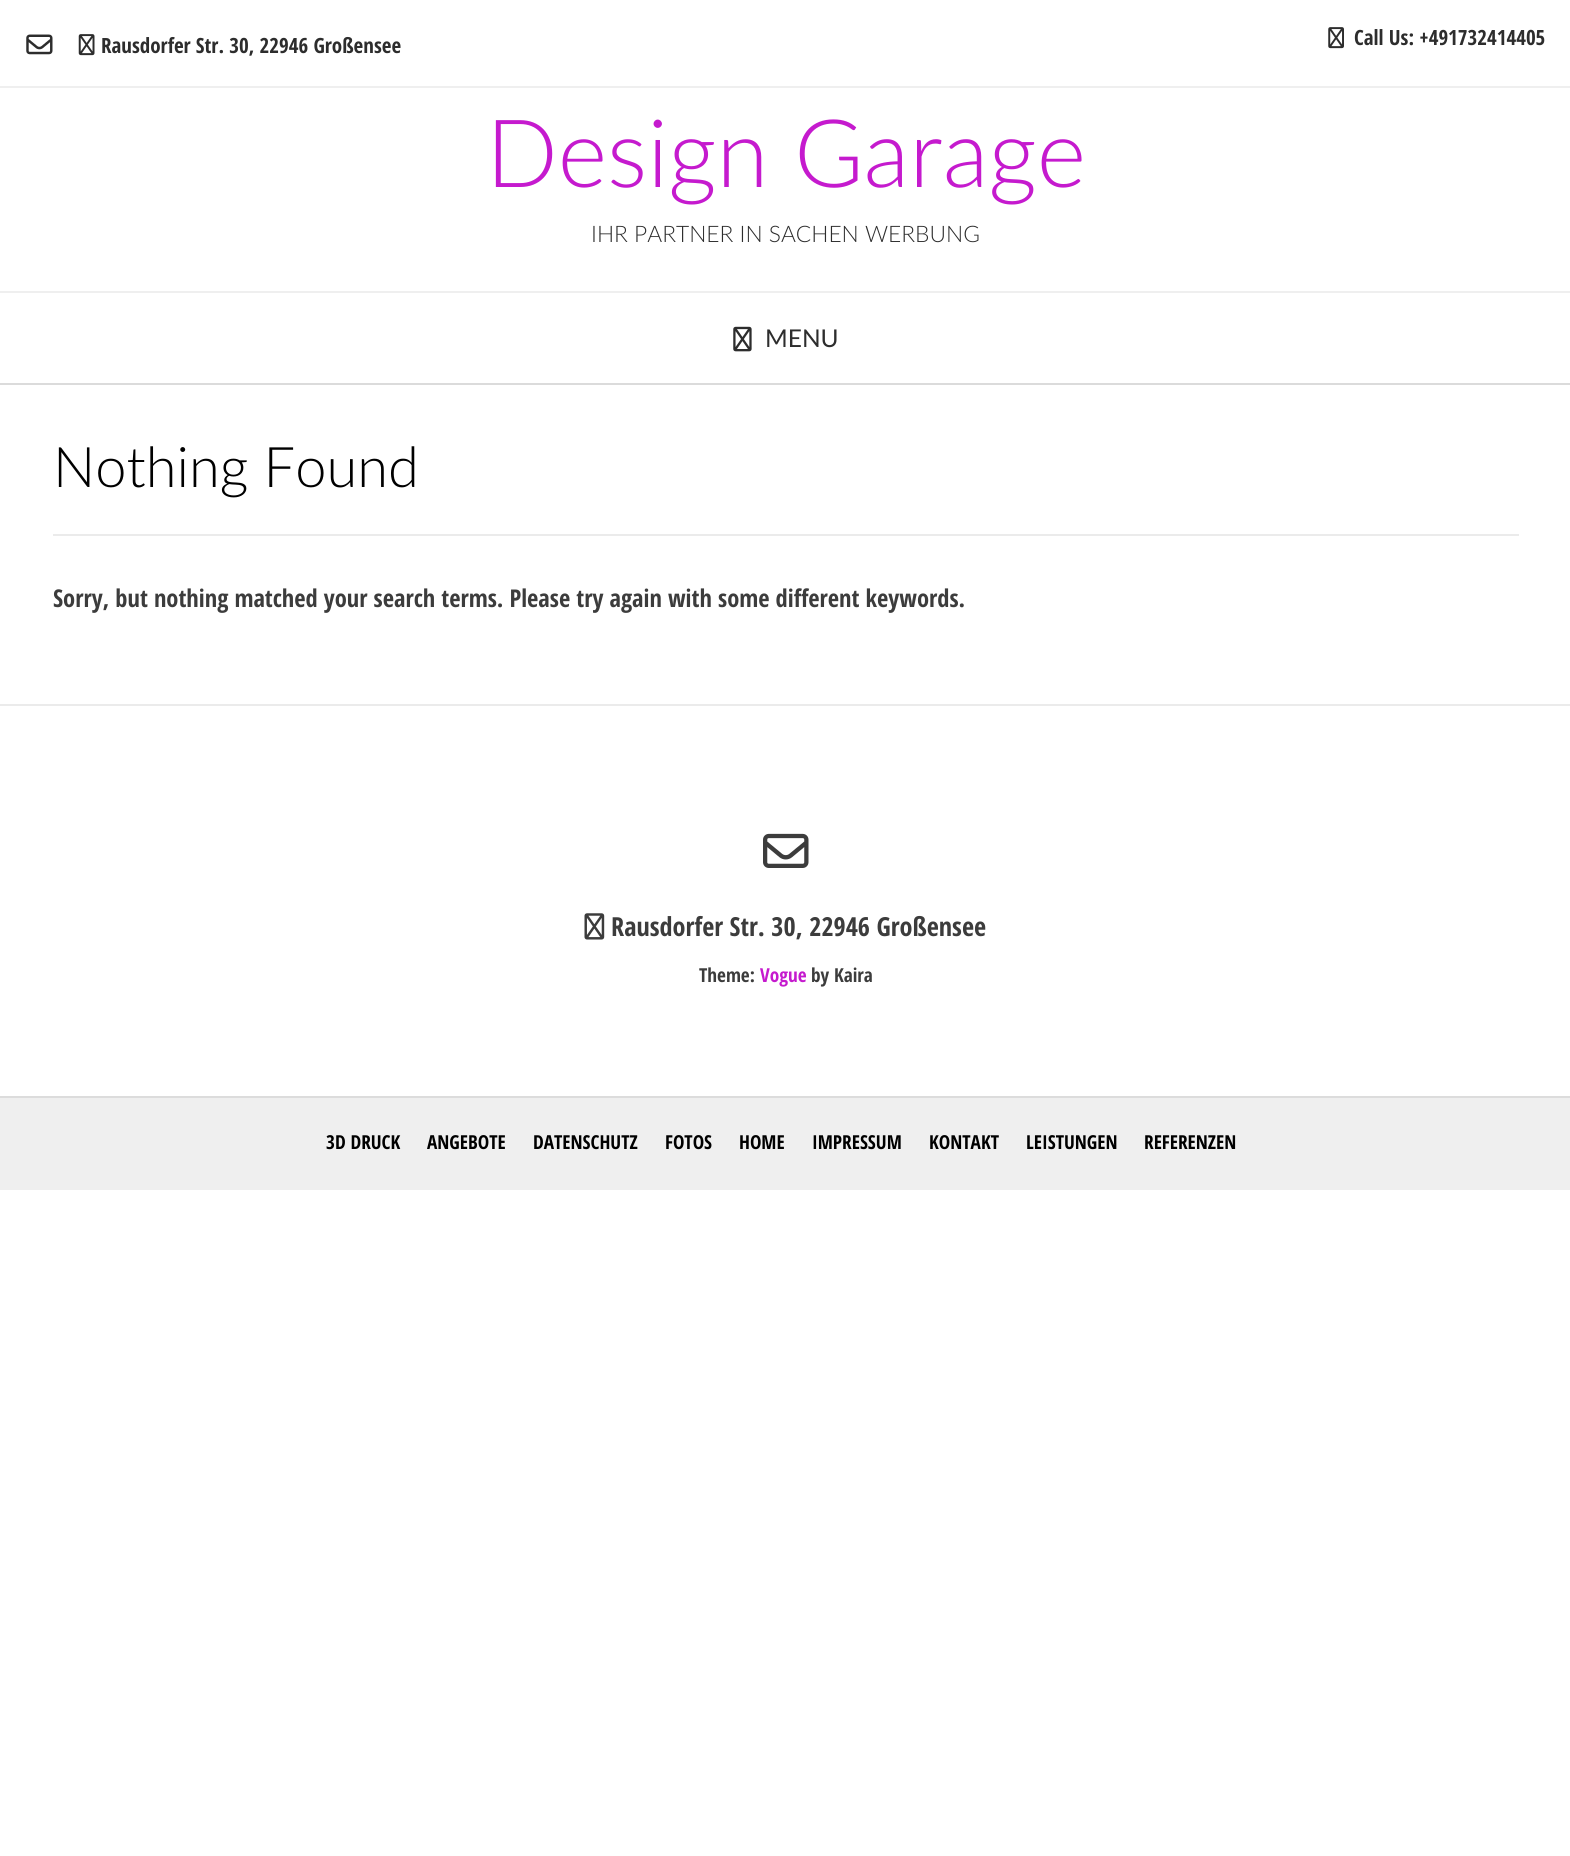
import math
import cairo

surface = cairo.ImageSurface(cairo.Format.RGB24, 1570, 1856)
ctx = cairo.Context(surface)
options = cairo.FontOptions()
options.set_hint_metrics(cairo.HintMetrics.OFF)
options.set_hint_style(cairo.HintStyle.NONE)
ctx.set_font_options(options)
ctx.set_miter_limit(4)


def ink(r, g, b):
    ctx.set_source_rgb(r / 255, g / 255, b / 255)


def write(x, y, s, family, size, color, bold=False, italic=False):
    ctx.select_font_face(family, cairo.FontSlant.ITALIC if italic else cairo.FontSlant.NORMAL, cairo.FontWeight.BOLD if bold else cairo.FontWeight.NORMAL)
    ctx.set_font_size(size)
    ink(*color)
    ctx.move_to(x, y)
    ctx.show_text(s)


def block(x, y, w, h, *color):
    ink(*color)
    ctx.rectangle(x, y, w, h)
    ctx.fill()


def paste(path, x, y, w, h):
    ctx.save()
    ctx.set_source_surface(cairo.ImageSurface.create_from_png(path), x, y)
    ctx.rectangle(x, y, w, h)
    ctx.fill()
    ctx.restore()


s1 = dict(family="Open Sans Condensed", size=21, color=(45, 45, 45), bold=True)
s2 = dict(family="Lato Light", size=94.5, color=(197, 26, 206))
s3 = dict(family="Lato Light", size=22.75, color=(45, 45, 45))
s4 = dict(family="Lato", size=24.5, color=(45, 45, 45))
s5 = dict(family="Lato Light", size=56, color=(0, 0, 0))
s6 = dict(family="Open Sans Condensed", size=24.5, color=(60, 60, 60), bold=True)
s7 = dict(family="Open Sans Condensed", size=26.25, color=(60, 60, 60), bold=True)
s8 = dict(family="Open Sans Condensed", size=19.25, color=(60, 60, 60), bold=True)
s9 = dict(family="Open Sans Condensed", size=19.25, color=(197, 26, 206), bold=True)
s10 = dict(family="Open Sans Condensed", size=19.25, color=(0, 0, 0), bold=True)

ink(255, 255, 255)
ctx.paint()
block(0, 383, 1570, 2, 219, 219, 219)
block(0, 86, 1570, 2, 239, 239, 239)
paste("pic1.png", 26, 34, 27, 21)
paste("pic2.png", 78, 34, 17, 22)
write(101, 53, "Rausdorfer Str. 30, 22946 Großensee", **s1)
paste("pic3.png", 1328, 27, 16, 22)
write(1354, 45, "Call Us: +491732414405", **s1)
write(486, 187, "Design Garage", **s2)
write(591, 242, "IHR PARTNER IN SACHEN WERBUNG", **s3)
block(0, 291, 1570, 2, 239, 239, 239)
paste("pic4.png", 733, 326, 19, 26)
write(765, 347, "MENU", **s4)
block(53, 534, 1466, 2, 235, 235, 235)
write(53, 487, "Nothing Found", **s5)
write(53, 607, "Sorry, but nothing matched your search terms. Please try again with some different keywords.", **s6)
block(0, 704, 1570, 2, 235, 235, 235)
paste("pic5.png", 763, 833, 46, 35)
paste("pic6.png", 584, 913, 21, 27)
write(611, 936, "Rausdorfer Str. 30, 22946 Großensee", **s7)
write(699, 982, "Theme:", **s8)
write(760, 982, "Vogue", **s9)
write(811, 982, "by Kaira", **s8)
block(0, 1098, 1570, 92, 239, 239, 239)
block(0, 1096, 1570, 2, 220, 220, 220)
write(326, 1149, "3D DRUCK", **s10)
write(427, 1149, "ANGEBOTE", **s10)
write(533, 1149, "DATENSCHUTZ", **s10)
write(665, 1149, "FOTOS", **s10)
write(739, 1149, "HOME", **s10)
write(812, 1149, "IMPRESSUM", **s10)
write(929, 1149, "KONTAKT", **s10)
write(1026, 1149, "LEISTUNGEN", **s10)
write(1144, 1149, "REFERENZEN", **s10)
surface.write_to_png("screenshot.png")
